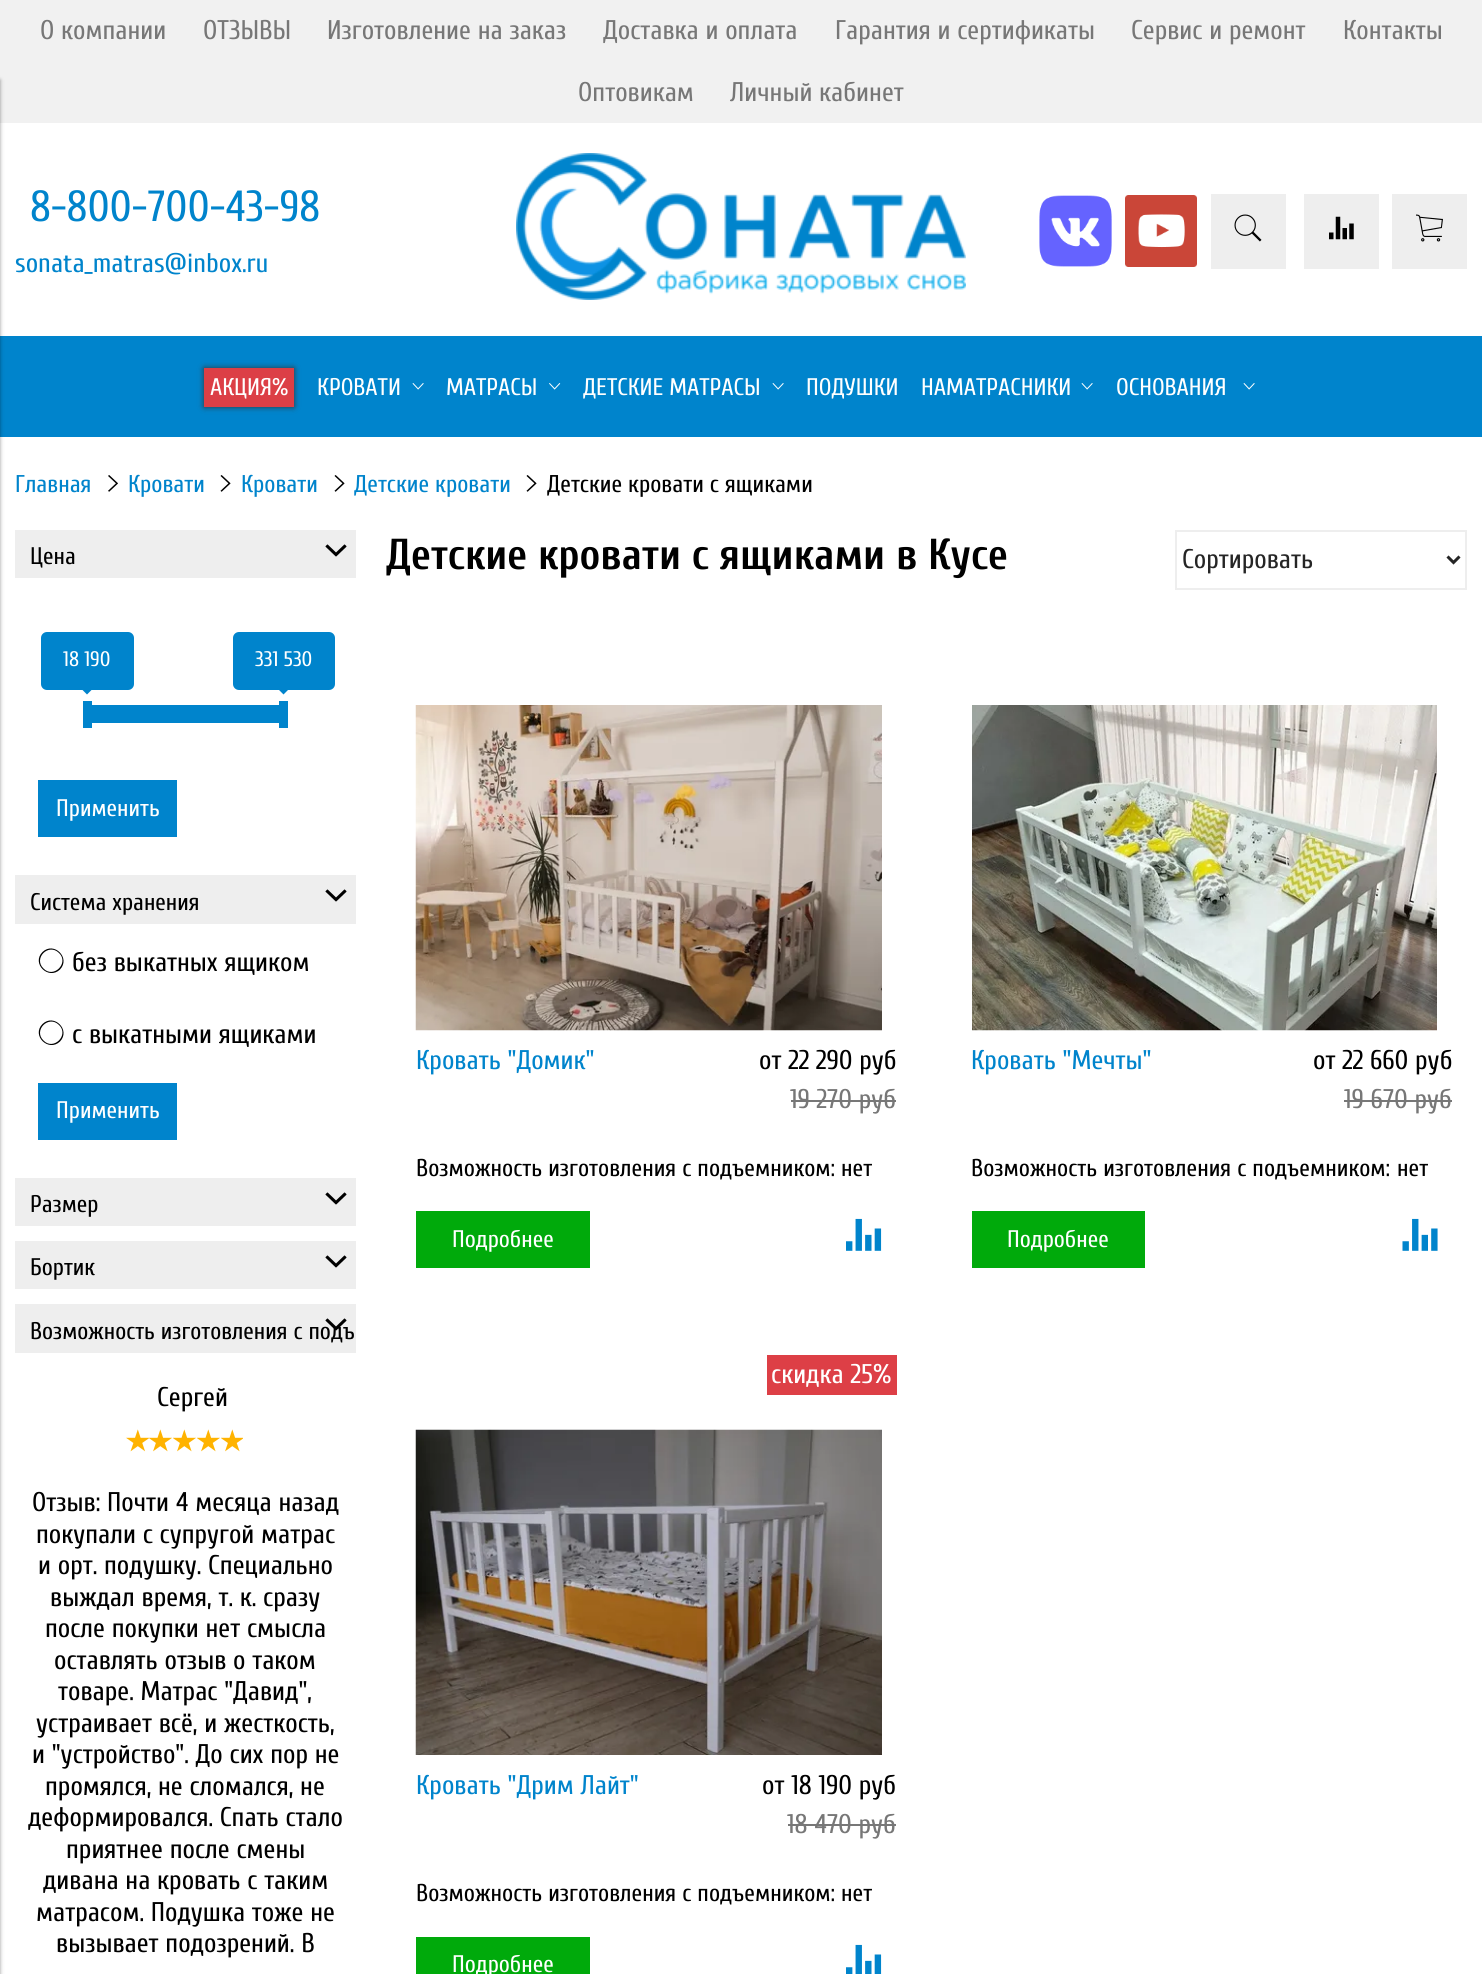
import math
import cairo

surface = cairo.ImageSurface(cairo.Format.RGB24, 1482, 1974)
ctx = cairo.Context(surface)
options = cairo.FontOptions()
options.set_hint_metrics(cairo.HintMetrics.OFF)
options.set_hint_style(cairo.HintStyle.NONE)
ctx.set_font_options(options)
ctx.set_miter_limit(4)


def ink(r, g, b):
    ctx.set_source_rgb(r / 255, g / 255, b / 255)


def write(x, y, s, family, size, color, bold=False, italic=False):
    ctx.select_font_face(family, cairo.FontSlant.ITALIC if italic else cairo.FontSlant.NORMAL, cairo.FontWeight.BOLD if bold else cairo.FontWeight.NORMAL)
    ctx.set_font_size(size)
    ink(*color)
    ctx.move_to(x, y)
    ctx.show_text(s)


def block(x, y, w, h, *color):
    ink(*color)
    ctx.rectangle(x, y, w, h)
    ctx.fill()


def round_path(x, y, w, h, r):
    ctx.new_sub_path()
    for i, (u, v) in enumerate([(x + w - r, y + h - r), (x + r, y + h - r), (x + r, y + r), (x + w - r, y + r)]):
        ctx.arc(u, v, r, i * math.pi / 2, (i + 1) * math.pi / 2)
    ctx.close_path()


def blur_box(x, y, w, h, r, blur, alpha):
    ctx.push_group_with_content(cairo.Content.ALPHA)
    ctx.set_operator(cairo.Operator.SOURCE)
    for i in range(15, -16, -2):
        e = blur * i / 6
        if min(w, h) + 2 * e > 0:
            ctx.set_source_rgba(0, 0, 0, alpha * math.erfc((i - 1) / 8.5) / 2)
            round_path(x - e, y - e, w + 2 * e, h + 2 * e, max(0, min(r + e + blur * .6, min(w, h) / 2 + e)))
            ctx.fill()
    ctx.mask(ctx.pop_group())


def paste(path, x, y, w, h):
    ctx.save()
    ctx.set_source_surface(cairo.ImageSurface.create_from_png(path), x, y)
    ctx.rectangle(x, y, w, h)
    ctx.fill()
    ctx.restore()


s1 = dict(family="Cuprum", size=27, color=(119, 119, 119))
s2 = dict(family="Cuprum", size=43.5, color=(0, 132, 204))
s3 = dict(family="Cuprum", size=27, color=(0, 132, 204))
s4 = dict(family="Cuprum", size=24, color=(255, 255, 255))
s5 = dict(family="Cuprum", size=24.25, color=(0, 132, 204))
s6 = dict(family="Cuprum", size=24.25, color=(0, 0, 0))
s7 = dict(family="Cuprum", size=24, color=(0, 0, 0))
s8 = dict(family="Cuprum", size=21, color=(255, 255, 255))
s9 = dict(family="Cuprum", size=27, color=(0, 0, 0))
s10 = dict(family="Cuprum", size=43.25, color=(0, 0, 0), bold=True)
s11 = dict(family="Cuprum", size=27, color=(37, 37, 37))
s12 = dict(family="Cuprum", size=27, color=(255, 255, 255))

ink(255, 255, 255)
ctx.paint()
block(0, 0, 1482, 123, 241, 241, 241)
block(0, 336, 1482, 101, 0, 132, 204)
ink(0, 0, 0)
blur_box(-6, 80, 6, 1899, 0, 2, 0.4)
write(40, 39, "О компании", **s1)
write(203, 39, "ОТЗЫВЫ", **s1)
write(327, 39, "Изготовление на заказ", **s1)
write(603, 39, "Доставка и оплата", **s1)
write(835, 39, "Гарантия и сертификаты", **s1)
write(1131, 39, "Сервис и ремонт", **s1)
write(1343, 39, "Контакты", **s1)
write(578, 101, "Оптовикам", **s1)
write(730, 101, "Личный кабинет", **s1)
write(30, 221, "8-800-700-43-98", **s2)
write(15, 272, "sonata_matras@inbox.ru", **s3)
paste("pic1.png", 516, 153, 450, 147)
paste("pic2.png", 1039, 195, 73, 72)
paste("pic3.png", 1125, 195, 72, 72)
block(1211, 194, 75, 75, 238, 238, 238)
paste("pic4.png", 1234, 214, 28, 28)
block(1304, 194, 75, 75, 238, 238, 238)
paste("pic5.png", 1329, 216, 25, 24)
block(1392, 194, 75, 75, 238, 238, 238)
paste("pic6.png", 1416, 214, 27, 28)
ink(51, 51, 51)
blur_box(204, 368, 90, 39, 0, 3, 1)
block(204, 368, 90, 39, 220, 63, 70)
write(210, 395, "АКЦИЯ%", **s4)
write(317, 395, "КРОВАТИ", **s4)
paste("pic7.png", 412, 383, 12, 7)
write(446, 395, "МАТРАСЫ", **s4)
paste("pic8.png", 549, 383, 12, 7)
write(583, 395, "ДЕТСКИЕ МАТРАСЫ", **s4)
paste("pic7.png", 772, 383, 12, 7)
write(806, 395, "ПОДУШКИ", **s4)
write(921, 395, "НАМАТРАСНИКИ", **s4)
paste("pic7.png", 1081, 383, 12, 7)
write(1116, 395, "ОСНОВАНИЯ", **s4)
paste("pic7.png", 1243, 383, 12, 7)
write(15, 492, "Главная", **s5)
paste("pic9.png", 108, 475, 10, 17)
write(128, 492, "Кровати", **s5)
paste("pic10.png", 220, 475, 11, 17)
write(241, 492, "Кровати", **s5)
paste("pic10.png", 334, 475, 11, 17)
write(354, 492, "Детские кровати", **s5)
paste("pic10.png", 526, 475, 11, 17)
write(547, 492, "Детские кровати с ящиками", **s6)
block(15, 530, 341, 48, 238, 238, 238)
write(30, 564, "Цена", **s7)
paste("pic11.png", 325, 544, 22, 13)
ink(0, 132, 204)
round_path(41, 632, 93, 58, 6)
ctx.fill()
write(63, 666, "18 190", **s8)
ink(0, 132, 204)
ctx.new_path()
ctx.move_to(82.5, 690)
ctx.line_to(91.5, 690)
ctx.line_to(87, 694.5)
ctx.close_path()
ctx.fill()
round_path(233, 632, 102, 58, 6)
ctx.fill()
write(255, 666, "331 530", **s8)
ink(0, 132, 204)
ctx.new_path()
ctx.move_to(279, 690)
ctx.line_to(288, 690)
ctx.line_to(283.5, 694.5)
ctx.close_path()
ctx.fill()
block(83, 701, 9, 27, 0, 132, 204)
block(92, 705, 187, 18, 0, 132, 204)
block(279, 701, 9, 27, 0, 132, 204)
block(38, 780, 139, 57, 0, 132, 204)
write(56, 816, "Применить", **s4)
block(15, 875, 341, 49, 238, 238, 238)
write(30, 910, "Система хранения", **s7)
paste("pic11.png", 325, 889, 22, 13)
ctx.new_path()
ctx.move_to(42.5, 952)
ctx.curve_to(54, 941, 71, 958, 60, 969.5)
ctx.curve_to(48.5, 980.5, 31, 963.5, 42.5, 952)
ctx.close_path()
ctx.move_to(43.5, 968.5)
ctx.curve_to(53.5, 979, 69.5, 963, 59, 953)
ctx.curve_to(48.5, 942.5, 33, 958.5, 43.5, 968.5)
ctx.close_path()
ctx.fill()
write(72, 971, "без выкатных ящиком", **s9)
ctx.new_path()
ctx.move_to(42.5, 1024)
ctx.curve_to(54, 1013, 71, 1030, 60, 1041.5)
ctx.curve_to(48.5, 1052.5, 31, 1035.5, 42.5, 1024)
ctx.close_path()
ctx.move_to(43.5, 1040.5)
ctx.curve_to(53.5, 1051, 69.5, 1035, 59, 1025)
ctx.curve_to(48.5, 1014.5, 33, 1030.5, 43.5, 1040.5)
ctx.close_path()
ctx.fill()
write(72, 1043, "с выкатными ящиками", **s9)
block(38, 1083, 139, 57, 0, 132, 204)
write(56, 1118, "Применить", **s4)
block(15, 1178, 341, 48, 238, 238, 238)
write(30, 1212, "Размер", **s7)
paste("pic11.png", 325, 1192, 22, 13)
block(15, 1241, 341, 48, 238, 238, 238)
write(30, 1275, "Бортик", **s7)
paste("pic11.png", 325, 1255, 22, 13)
block(15, 1304, 341, 49, 238, 238, 238)
write(30, 1339, "Возможность изготовления с подъ", **s7)
paste("pic12.png", 325, 1318, 22, 13)
write(157, 1406, "Сергей", **s9)
paste("pic13.png", 126, 1429, 23, 23)
paste("pic14.png", 149, 1429, 23, 23)
paste("pic14.png", 173, 1429, 23, 23)
paste("pic14.png", 197, 1429, 23, 23)
paste("pic15.png", 221, 1429, 22, 23)
write(32, 1511, "Отзыв: Почти 4 месяца назад", **s9)
write(36, 1543, "покупали с супругой матрас", **s9)
write(38, 1574, "и орт. подушку. Специально", **s9)
write(50, 1606, "выждал время, т. к. сразу", **s9)
write(45, 1637, "после покупки нет смысла", **s9)
write(54, 1669, "оставлять отзыв о таком", **s9)
write(58, 1700, "товаре. Матрас \"Давид\",", **s9)
write(36, 1732, "устраивает всё, и жесткость,", **s9)
write(32, 1763, "и \"устройство\". До сих пор не", **s9)
write(45, 1795, "промялся, не сломался, не", **s9)
write(28, 1826, "деформировался. Спать стало", **s9)
write(66, 1858, "приятнее после смены", **s9)
write(43, 1889, "дивана на кровать с таким", **s9)
write(36, 1921, "матрасом. Подушка тоже не", **s9)
write(56, 1952, "вызывает подозрений. В", **s9)
write(386, 569, "Детские кровати с ящиками в Кусе", **s10)
ctx.rectangle(1176, 531, 290, 58)
ink(238, 238, 238)
ctx.stroke()
ctx.new_path()
ctx.move_to(1447.5, 556.5)
ctx.line_to(1453.5, 562.5)
ctx.line_to(1459.5, 556.5)
ink(37, 37, 37)
ctx.set_line_width(3)
ctx.stroke()
write(1182, 568, "Сортировать", **s11)
paste("pic16.png", 415, 705, 467, 326)
write(416, 1069, "Кровать \"Домик\"", **s3)
write(759, 1069, "от 22 290 руб", **s9)
write(790, 1108, "19 270 руб", **s1)
block(791, 1100, 105, 2, 119, 119, 119)
write(416, 1176, "Возможность изготовления с подъемником:", **s6)
write(841, 1176, "нет", **s6)
block(416, 1211, 174, 57, 0, 170, 11)
write(452, 1247, "Подробнее", **s4)
paste("pic17.png", 846, 1218, 36, 33)
paste("pic18.png", 972, 705, 465, 326)
write(971, 1069, "Кровать \"Мечты\"", **s3)
write(1313, 1069, "от 22 660 руб", **s9)
write(1344, 1108, "19 670 руб", **s1)
block(1344, 1100, 108, 2, 119, 119, 119)
write(971, 1176, "Возможность изготовления с подъемником:", **s6)
write(1397, 1176, "нет", **s6)
block(972, 1211, 173, 57, 0, 170, 11)
write(1007, 1247, "Подробнее", **s4)
paste("pic19.png", 1402, 1218, 36, 33)
block(767, 1355, 130, 40, 221, 63, 70)
write(771, 1383, "скидка 25%", **s12)
paste("pic20.png", 415, 1429, 467, 326)
write(416, 1794, "Кровать \"Дрим Лайт\"", **s3)
write(762, 1794, "от 18 190 руб", **s9)
write(787, 1833, "18 470 руб", **s1)
block(788, 1824, 108, 2, 119, 119, 119)
write(416, 1901, "Возможность изготовления с подъемником:", **s6)
write(841, 1901, "нет", **s6)
block(416, 1937, 174, 37, 0, 170, 11)
write(452, 1972, "Подробнее", **s4)
paste("pic21.png", 846, 1944, 36, 30)
surface.write_to_png("screenshot.png")
